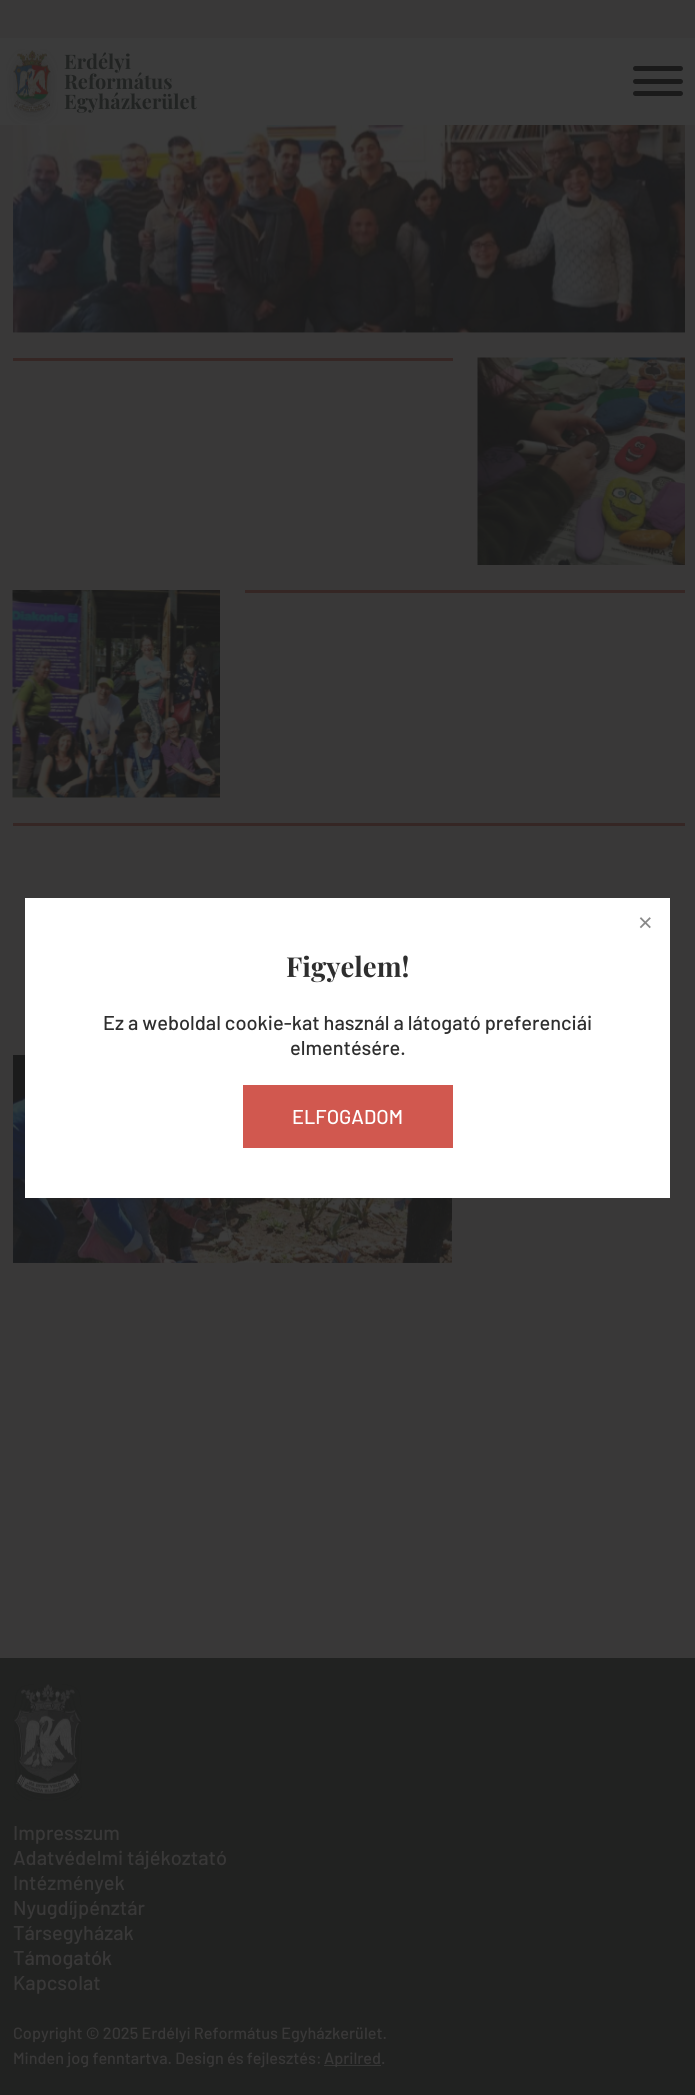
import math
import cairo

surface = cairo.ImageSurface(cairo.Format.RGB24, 695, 2095)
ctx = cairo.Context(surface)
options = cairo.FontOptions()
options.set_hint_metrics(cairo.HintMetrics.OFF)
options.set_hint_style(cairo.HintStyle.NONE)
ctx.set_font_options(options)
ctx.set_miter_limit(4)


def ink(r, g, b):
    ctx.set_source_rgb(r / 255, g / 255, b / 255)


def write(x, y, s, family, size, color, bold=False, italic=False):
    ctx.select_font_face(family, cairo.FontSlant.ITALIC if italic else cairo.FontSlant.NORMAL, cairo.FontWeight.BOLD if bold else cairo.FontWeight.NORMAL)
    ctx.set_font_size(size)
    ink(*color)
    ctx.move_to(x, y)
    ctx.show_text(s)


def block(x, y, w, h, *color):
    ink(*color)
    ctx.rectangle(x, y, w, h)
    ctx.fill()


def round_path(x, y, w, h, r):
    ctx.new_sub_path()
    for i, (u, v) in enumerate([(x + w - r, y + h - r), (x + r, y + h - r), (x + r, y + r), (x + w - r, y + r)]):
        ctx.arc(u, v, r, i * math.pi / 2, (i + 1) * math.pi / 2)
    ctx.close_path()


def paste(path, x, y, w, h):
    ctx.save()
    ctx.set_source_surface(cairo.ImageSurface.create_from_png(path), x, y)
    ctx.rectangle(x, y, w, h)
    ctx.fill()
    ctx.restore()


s1 = dict(family="Playfair Display", size=20, color=(33, 35, 34), bold=True)
s2 = dict(family="Barlow Medium", size=20, color=(57, 56, 56))
s3 = dict(family="Barlow Medium", size=16.25, color=(57, 56, 56))
s4 = dict(family="Liberation Sans", size=25, color=(136, 136, 136))
s5 = dict(family="Playfair Display", size=27.5, color=(46, 46, 46), bold=True)
s6 = dict(family="Barlow Medium", size=20, color=(46, 46, 46))
s7 = dict(family="Barlow Medium", size=20, color=(255, 255, 255))

ink(57, 56, 56)
ctx.paint()
block(0, 38, 695, 87, 59, 59, 59)
paste("pic1.png", 6, 49, 52, 75)
write(64, 69, "Erdélyi", **s1)
write(64, 89, "Református", **s1)
write(64, 109, "Egyházkerület", **s1)
ink(26, 26, 26)
round_path(633, 66, 50, 5, 2.5)
ctx.fill()
round_path(633, 79, 50, 5, 2.5)
ctx.fill()
round_path(633, 91, 50, 5, 2.5)
ctx.fill()
paste("pic2.png", 13, 125, 672, 208)
block(13, 358, 440, 3, 53, 38, 36)
paste("pic3.png", 477, 357, 208, 208)
paste("pic4.png", 12, 590, 208, 208)
block(245, 590, 440, 3, 53, 38, 36)
block(13, 823, 672, 3, 53, 38, 36)
paste("pic5.png", 13, 1055, 439, 208)
block(0, 1658, 695, 437, 33, 34, 33)
paste("pic6.png", 13, 1684, 69, 117)
write(13, 1840, "Impresszum", **s2)
write(13, 1865, "Adatvédelmi tájékoztató", **s2)
write(13, 1890, "Intézmények", **s2)
write(13, 1915, "Nyugdíjpénztár", **s2)
write(13, 1940, "Társegyházak", **s2)
write(13, 1965, "Támogatók", **s2)
write(13, 1990, "Kapcsolat", **s2)
write(13, 2039, "Copyright © 2025 Erdélyi Református Egyházkerület.", **s3)
write(13, 2064, "Minden jog fenntartva. Design és fejlesztés:", **s3)
block(324, 2065, 57, 1, 54, 54, 54)
write(324, 2064, "Aprilred", **s3)
write(381, 2064, ".", **s3)
block(25, 898, 645, 300, 255, 255, 255)
write(638, 931, "×", **s4)
write(286, 977, "Figyelem!", **s5)
write(103, 1030, "Ez a weboldal cookie-kat használ a látogató preferenciái", **s6)
write(290, 1055, "elmentésére.", **s6)
block(243, 1085, 210, 63, 209, 88, 79)
write(292, 1124, "ELFOGADOM", **s7)
surface.write_to_png("screenshot.png")
